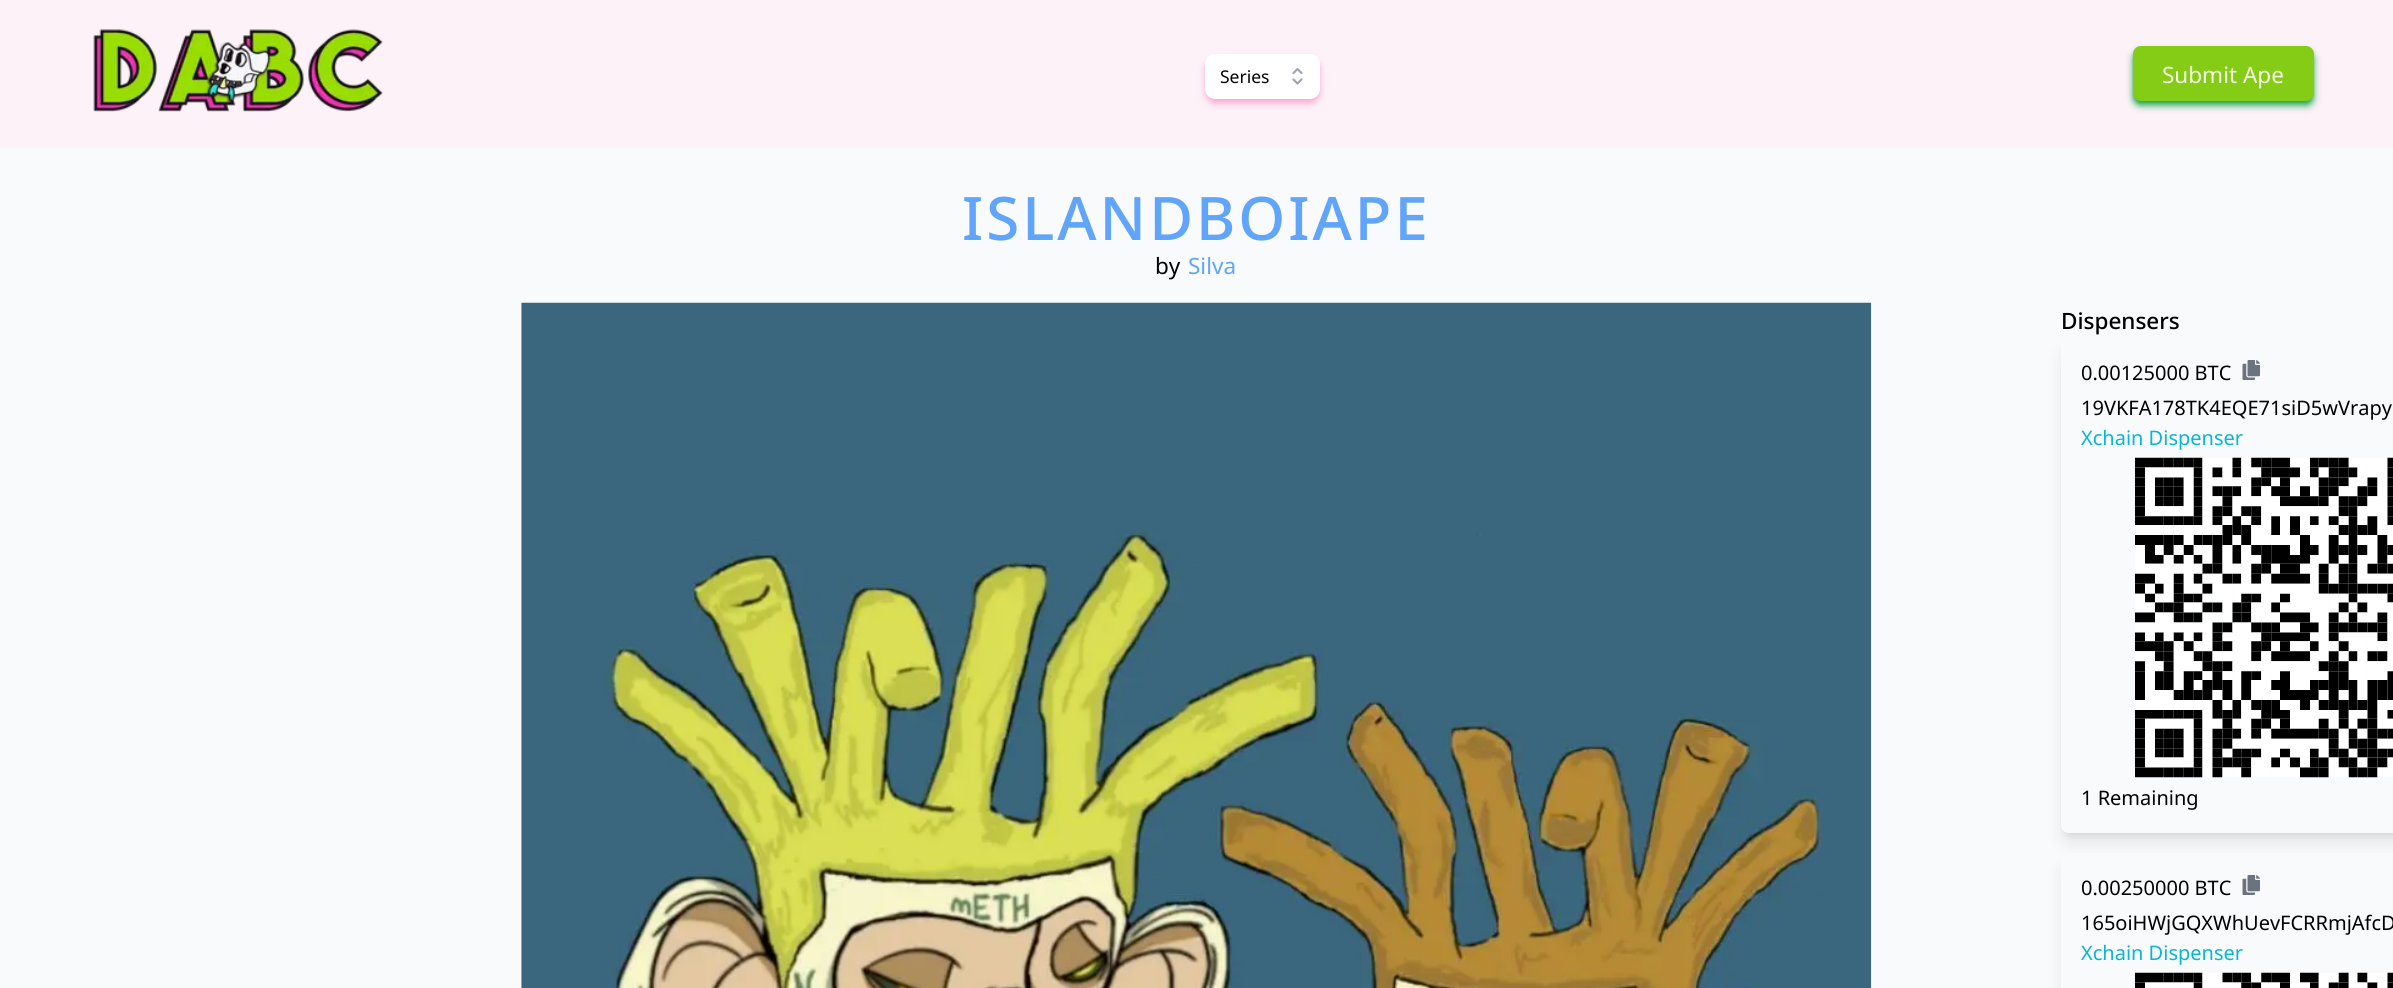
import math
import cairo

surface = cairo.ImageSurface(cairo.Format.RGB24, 2393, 988)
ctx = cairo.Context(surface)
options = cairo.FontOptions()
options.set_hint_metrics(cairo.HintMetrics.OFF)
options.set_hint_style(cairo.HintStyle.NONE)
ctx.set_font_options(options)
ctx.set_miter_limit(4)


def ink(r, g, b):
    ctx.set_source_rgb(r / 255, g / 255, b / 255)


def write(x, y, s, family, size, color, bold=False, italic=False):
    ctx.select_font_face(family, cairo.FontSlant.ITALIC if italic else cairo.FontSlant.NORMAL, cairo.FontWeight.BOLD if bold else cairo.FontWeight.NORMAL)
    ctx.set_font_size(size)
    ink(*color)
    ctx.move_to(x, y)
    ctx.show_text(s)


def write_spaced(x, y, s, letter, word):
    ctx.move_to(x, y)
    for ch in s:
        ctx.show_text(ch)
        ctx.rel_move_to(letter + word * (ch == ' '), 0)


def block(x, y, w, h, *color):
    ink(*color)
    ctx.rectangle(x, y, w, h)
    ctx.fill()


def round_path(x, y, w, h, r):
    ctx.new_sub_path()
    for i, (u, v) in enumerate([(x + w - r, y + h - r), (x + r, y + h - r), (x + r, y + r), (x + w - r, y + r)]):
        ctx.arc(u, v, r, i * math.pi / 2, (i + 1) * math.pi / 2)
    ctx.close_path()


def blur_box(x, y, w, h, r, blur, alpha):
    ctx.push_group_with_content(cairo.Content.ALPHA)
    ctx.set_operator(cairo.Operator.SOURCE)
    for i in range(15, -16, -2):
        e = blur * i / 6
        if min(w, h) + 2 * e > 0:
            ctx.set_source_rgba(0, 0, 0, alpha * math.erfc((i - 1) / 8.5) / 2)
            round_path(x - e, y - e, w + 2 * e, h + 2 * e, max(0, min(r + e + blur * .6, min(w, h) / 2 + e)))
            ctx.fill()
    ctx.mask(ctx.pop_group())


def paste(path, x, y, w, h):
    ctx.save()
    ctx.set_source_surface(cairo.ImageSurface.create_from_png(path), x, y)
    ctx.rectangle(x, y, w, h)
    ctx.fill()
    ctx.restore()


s1 = dict(family="Noto Sans", size=17.5, color=(0, 0, 0))
s2 = dict(family="Noto Sans", size=22.5, color=(247, 254, 231))
s3 = dict(family="Noto Sans", size=22.5, color=(0, 0, 0))
s4 = dict(family="Noto Sans", size=22.5, color=(96, 165, 250))
s5 = dict(family="Noto Sans Medium", size=22.5, color=(0, 0, 0))
s6 = dict(family="Noto Sans", size=20, color=(0, 0, 0))
s7 = dict(family="Noto Sans", size=20, color=(6, 182, 212))

ink(253, 242, 248)
ctx.paint()
paste("pic1.png", 93, 29, 290, 83)
ink(249, 168, 212)
blur_box(1208, 59, 110, 40, 8, 2.5, 1)
blur_box(1206, 60, 113, 43, 9, 4, 1)
ink(255, 255, 255)
round_path(1205, 54, 115, 45, 10)
ctx.fill()
write(1220, 83, "Series", **s1)
ctx.new_path()
ctx.move_to(1293.5, 73)
ctx.line_to(1297.5, 69)
ctx.line_to(1301.5, 73)
ctx.move_to(1301.5, 79.5)
ctx.line_to(1297.5, 83.5)
ctx.line_to(1293.5, 79.5)
ink(156, 163, 175)
ctx.set_line_width(2.1)
ctx.set_line_cap(cairo.LineCap.ROUND)
ctx.set_line_join(cairo.LineJoin.ROUND)
ctx.stroke()
ink(22, 163, 74)
blur_box(2135, 51, 176, 50, 5, 2.5, 1)
blur_box(2134, 53, 179, 52, 6, 4, 1)
ink(132, 204, 22)
round_path(2133, 46, 181, 55, 8)
ctx.fill()
write(2162, 83, "Submit Ape", **s2)
block(0, 148, 2393, 840, 249, 250, 251)
ctx.select_font_face("Noto Sans Medium")
ctx.set_font_size(60)
ink(96, 165, 250)
write_spaced(962, 240, "ISLANDBOIAPE", 3, 0)
write(1155, 274, "by", **s3)
write(1188, 274, "Silva", **s4)
paste("pic2.png", 521, 302, 1351, 686)
ink(0, 0, 0)
blur_box(2065, 354, 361, 487, 4, 9.5, 0.1)
write(2061, 329, "Dispensers", **s5)
ink(0, 0, 0)
blur_box(2066, 348, 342, 485, 2.5, 4, 0.1)
ink(249, 250, 251)
round_path(2061, 338, 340, 495, 8)
ctx.fill()
write(2081, 380, "0.00125000 BTC", **s6)
paste("pic3.png", 2242, 360, 18, 20)
write(2081, 415, "19VKFA178TK4EQE71siD5wVrapy", **s6)
write(2081, 445, "Xchain Dispenser", **s7)
paste("pic4.png", 2135, 457, 258, 321)
write(2081, 805, "1 Remaining", **s6)
ink(0, 0, 0)
blur_box(2065, 869, 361, 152, 4, 9.5, 0.1)
ink(249, 250, 251)
round_path(2061, 853, 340, 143, 8)
ctx.fill()
write(2081, 895, "0.00250000 BTC", **s6)
paste("pic3.png", 2242, 875, 18, 20)
write(2081, 930, "165oiHWjGQXWhUevFCRRmjAfcD", **s6)
write(2081, 960, "Xchain Dispenser", **s7)
paste("pic5.png", 2135, 972, 258, 16)
surface.write_to_png("screenshot.png")
